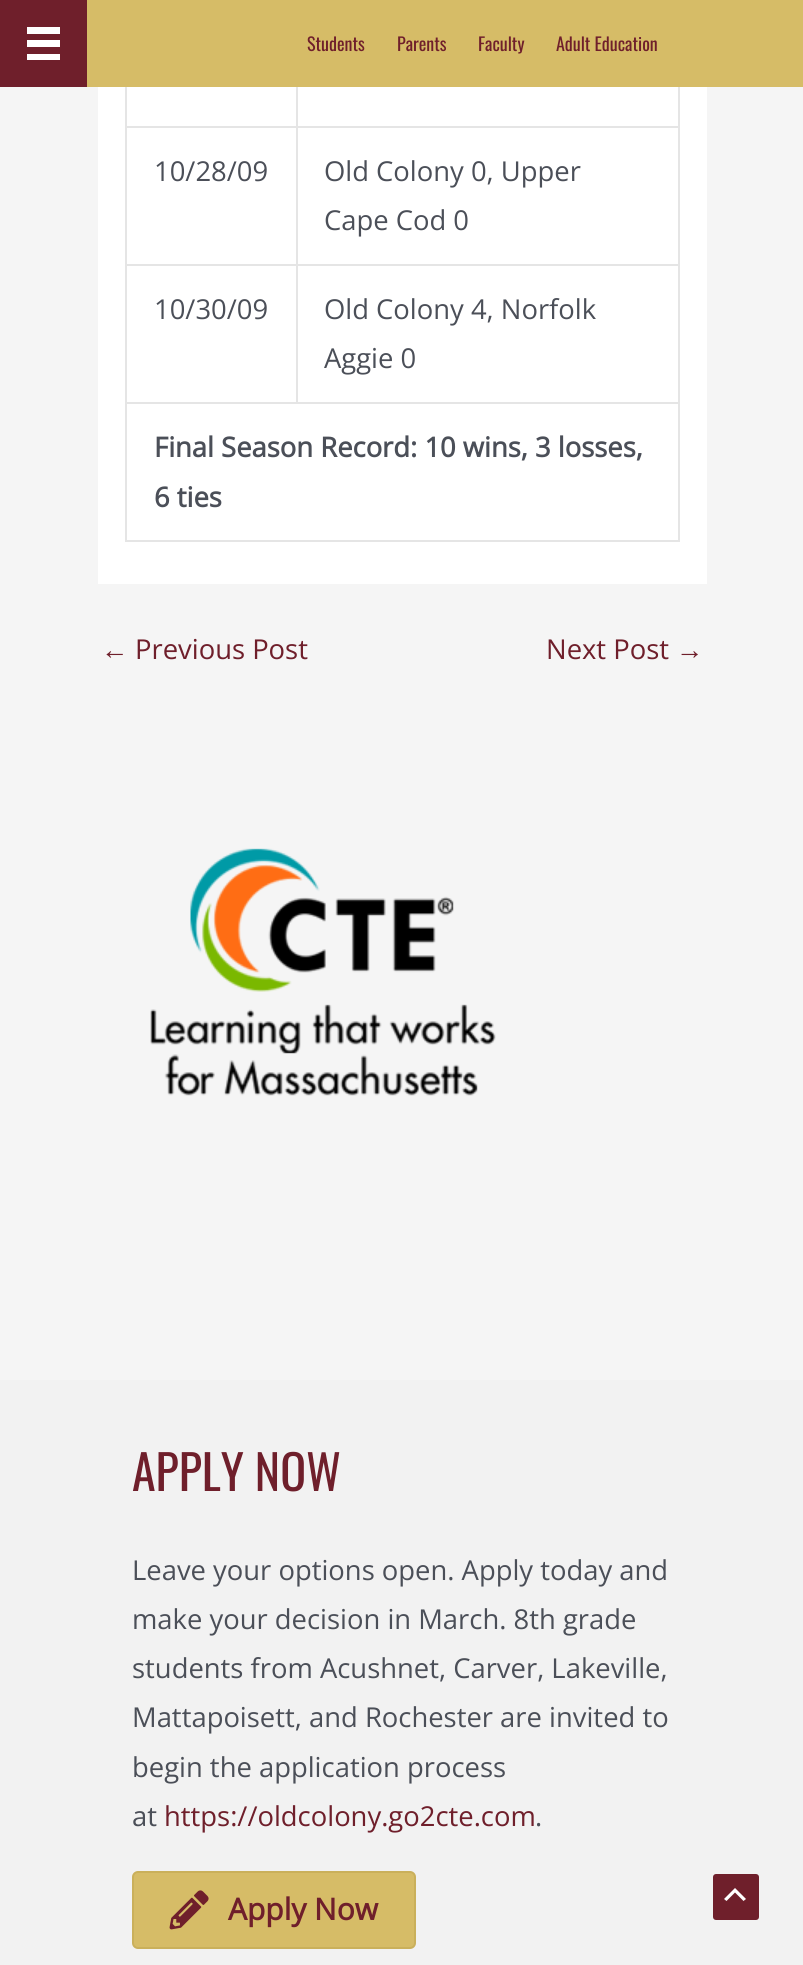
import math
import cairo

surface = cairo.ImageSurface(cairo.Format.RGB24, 803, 1965)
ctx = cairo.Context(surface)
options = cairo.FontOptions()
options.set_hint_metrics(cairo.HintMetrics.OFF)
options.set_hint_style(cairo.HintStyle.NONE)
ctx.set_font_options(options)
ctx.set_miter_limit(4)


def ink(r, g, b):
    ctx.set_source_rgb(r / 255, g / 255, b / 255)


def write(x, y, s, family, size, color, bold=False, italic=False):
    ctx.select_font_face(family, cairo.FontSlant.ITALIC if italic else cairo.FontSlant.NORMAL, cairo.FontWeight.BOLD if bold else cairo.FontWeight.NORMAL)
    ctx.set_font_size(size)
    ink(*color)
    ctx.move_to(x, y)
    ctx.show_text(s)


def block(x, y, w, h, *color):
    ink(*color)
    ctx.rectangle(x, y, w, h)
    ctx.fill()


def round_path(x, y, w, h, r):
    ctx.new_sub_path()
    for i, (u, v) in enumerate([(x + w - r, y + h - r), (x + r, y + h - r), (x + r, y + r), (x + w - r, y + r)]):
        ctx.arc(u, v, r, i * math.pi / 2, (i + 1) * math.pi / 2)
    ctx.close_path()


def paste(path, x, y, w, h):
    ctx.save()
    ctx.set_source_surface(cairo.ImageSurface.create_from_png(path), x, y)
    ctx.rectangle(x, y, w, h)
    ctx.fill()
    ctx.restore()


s1 = dict(family="Oswald", size=18, color=(111, 31, 43))
s2 = dict(family="Open Sans", size=27.4, color=(75, 79, 88))
s3 = dict(family="Open Sans", size=27.4, color=(75, 79, 88), bold=True)
s4 = dict(family="Liberation Sans", size=27.4, color=(111, 31, 43))
s5 = dict(family="Open Sans", size=27.4, color=(111, 31, 43))
s6 = dict(family="Oswald", size=48, color=(111, 31, 43))
s7 = dict(family="Open Sans", size=30, color=(111, 31, 43), bold=True)

ink(245, 245, 245)
ctx.paint()
block(87, 0, 716, 87, 214, 188, 103)
block(0, 0, 87, 87, 111, 31, 43)
block(27, 27, 33, 7, 255, 255, 255)
block(27, 40, 33, 7, 255, 255, 255)
block(27, 54, 33, 6, 255, 255, 255)
write(307, 51, "Students", **s1)
write(397, 51, "Parents", **s1)
write(478, 51, "Faculty", **s1)
write(556, 51, "Adult Education", **s1)
block(98, 87, 609, 497, 255, 255, 255)
block(125, 87, 2, 455, 229, 229, 229)
block(296, 87, 2, 317, 229, 229, 229)
block(126, 126, 171, 2, 229, 229, 229)
block(678, 87, 2, 455, 229, 229, 229)
block(297, 126, 383, 2, 229, 229, 229)
block(126, 264, 554, 2, 229, 229, 229)
write(154, 181, "10/28/09", **s2)
write(324, 181, "Old Colony 0, Upper", **s2)
write(324, 230, "Cape Cod 0", **s2)
block(126, 402, 554, 2, 229, 229, 229)
write(154, 319, "10/30/09", **s2)
write(324, 319, "Old Colony 4, Norfolk", **s2)
write(324, 368, "Aggie 0", **s2)
block(126, 540, 554, 2, 229, 229, 229)
write(154, 457, "Final Season Record: 10 wins, 3 losses,", **s3)
write(154, 507, "6 ties", **s3)
write(101, 659, "←", **s4)
write(135, 659, "Previous Post", **s5)
write(546, 659, "Next Post", **s5)
write(676, 659, "→", **s4)
paste("pic1.png", 150, 848, 346, 248)
block(0, 1380, 803, 585, 242, 242, 242)
write(132, 1491, "APPLY NOW", **s6)
write(132, 1580, "Leave your options open. Apply today and", **s2)
write(132, 1629, "make your decision in March. 8th grade", **s2)
write(132, 1678, "students from Acushnet, Carver, Lakeville,", **s2)
write(132, 1727, "Mattapoisett, and Rochester are invited to", **s2)
write(132, 1777, "begin the application process", **s2)
write(132, 1826, "at", **s2)
write(164, 1826, "https://oldcolony.go2cte.com", **s5)
write(535, 1826, ".", **s2)
ink(214, 188, 103)
round_path(133, 1872, 282, 76, 5)
ctx.fill_preserve()
ink(202, 176, 91)
ctx.stroke()
paste("pic2.png", 169, 1890, 40, 40)
write(228, 1920, "Apply Now", **s7)
round_path(713, 1874, 46, 46, 3)
ctx.fill()
ink(255, 255, 255)
ctx.new_path()
ctx.move_to(746, 1899)
ctx.line_to(735, 1888)
ctx.line_to(724, 1899)
ctx.line_to(726.5, 1901)
ctx.line_to(735, 1892.5)
ctx.line_to(743.5, 1901)
ctx.close_path()
ctx.fill()
surface.write_to_png("screenshot.png")
